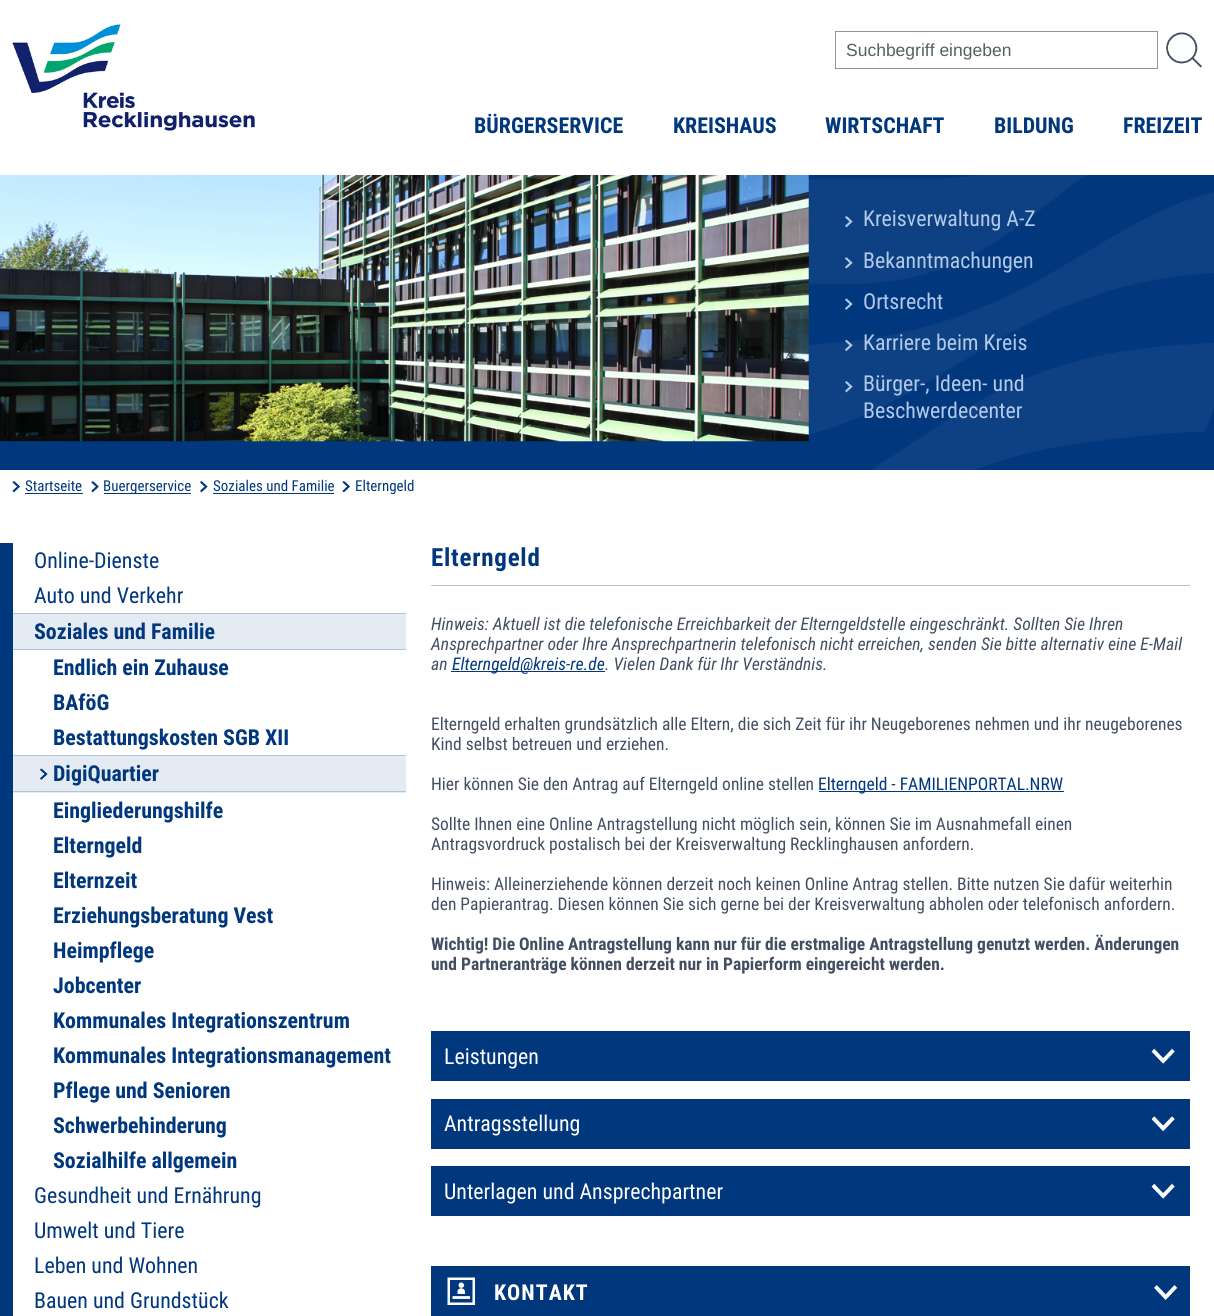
import math
import cairo

surface = cairo.ImageSurface(cairo.Format.RGB24, 1214, 1316)
ctx = cairo.Context(surface)
options = cairo.FontOptions()
options.set_hint_metrics(cairo.HintMetrics.OFF)
options.set_hint_style(cairo.HintStyle.NONE)
ctx.set_font_options(options)
ctx.set_miter_limit(4)


def ink(r, g, b):
    ctx.set_source_rgb(r / 255, g / 255, b / 255)


def write(x, y, s, family, size, color, bold=False, italic=False):
    ctx.select_font_face(family, cairo.FontSlant.ITALIC if italic else cairo.FontSlant.NORMAL, cairo.FontWeight.BOLD if bold else cairo.FontWeight.NORMAL)
    ctx.set_font_size(size)
    ink(*color)
    ctx.move_to(x, y)
    ctx.show_text(s)


def write_spaced(x, y, s, letter, word):
    ctx.move_to(x, y)
    for ch in s:
        ctx.show_text(ch)
        ctx.rel_move_to(letter + word * (ch == ' '), 0)


def block(x, y, w, h, *color):
    ink(*color)
    ctx.rectangle(x, y, w, h)
    ctx.fill()


def paste(path, x, y, w, h):
    ctx.save()
    ctx.set_source_surface(cairo.ImageSurface.create_from_png(path), x, y)
    ctx.rectangle(x, y, w, h)
    ctx.fill()
    ctx.restore()


s1 = dict(family="Liberation Sans", size=17.5, color=(79, 98, 97))
s2 = dict(family="Roboto Condensed", size=21.9, color=(0, 55, 125), bold=True)
s3 = dict(family="Roboto Condensed", size=21.9, color=(178, 202, 232))
s4 = dict(family="Roboto Condensed", size=15, color=(0, 55, 125))
s5 = dict(family="Roboto Condensed", size=21.9, color=(0, 55, 125))
s6 = dict(family="Roboto Condensed", size=17.5, color=(66, 78, 97), italic=True)
s7 = dict(family="Roboto Condensed", size=17.5, color=(0, 55, 125), italic=True)
s8 = dict(family="Roboto Condensed", size=17.5, color=(66, 78, 97))
s9 = dict(family="Roboto Condensed", size=17.5, color=(0, 55, 125))
s10 = dict(family="Roboto Condensed", size=17.5, color=(66, 78, 97), bold=True)
s11 = dict(family="Roboto Condensed", size=21.9, color=(255, 255, 255))

ink(255, 255, 255)
ctx.paint()
paste("pic1.png", 12, 24, 243, 107)
ctx.rectangle(835.5, 31.5, 322, 37)
ink(142, 149, 160)
ctx.set_line_width(1)
ctx.stroke()
write(846, 56, "Suchbegriff eingeben", **s1)
paste("pic2.png", 1166, 32, 36, 36)
write(474, 133, "BÜRGERSERVICE", **s2)
write(673, 133, "KREISHAUS", **s2)
write(825, 133, "WIRTSCHAFT", **s2)
write(994, 133, "BILDUNG", **s2)
write(1123, 133, "FREIZEIT", **s2)
block(0, 175, 1214, 295, 0, 55, 125)
paste("pic3.png", 809, 175, 405, 295)
paste("pic4.png", 0, 175, 809, 267)
paste("pic5.png", 845, 216, 8, 12)
write(863, 226, "Kreisverwaltung A-Z", **s3)
paste("pic6.png", 845, 257, 8, 12)
write(863, 268, "Bekanntmachungen", **s3)
paste("pic7.png", 845, 298, 8, 12)
write(863, 309, "Ortsrecht", **s3)
paste("pic8.png", 845, 340, 8, 12)
write(863, 350, "Karriere beim Kreis", **s3)
paste("pic5.png", 845, 381, 8, 12)
write(863, 391, "Bürger-, Ideen- und", **s3)
write(863, 418, "Beschwerdecenter", **s3)
paste("pic9.png", 12, 481, 8, 12)
write(25, 491, "Startseite", **s4)
block(25, 493, 58, 1, 0, 55, 125)
paste("pic10.png", 91, 481, 8, 12)
block(104, 493, 87, 1, 0, 55, 125)
write(103, 491, "Buergerservice", **s4)
paste("pic11.png", 200, 481, 8, 12)
write(213, 491, "Soziales und Familie", **s4)
block(213, 493, 121, 1, 0, 55, 125)
paste("pic12.png", 342, 481, 8, 12)
write(355, 491, "Elterngeld", **s4)
block(0, 543, 13, 773, 0, 55, 125)
write(34, 568, "Online-Dienste", **s5)
write(34, 603, "Auto und Verkehr", **s5)
block(13, 614, 393, 35, 229, 235, 242)
block(13, 613, 393, 1, 178, 195, 216)
block(13, 649, 393, 1, 178, 195, 216)
write(34, 639, "Soziales und Familie", **s2)
write(53, 675, "Endlich ein Zuhause", **s2)
write(53, 710, "BAföG", **s2)
write(53, 745, "Bestattungskosten SGB XII", **s2)
block(13, 756, 393, 37, 229, 235, 242)
paste("pic13.png", 40, 768, 8, 12)
block(13, 755, 393, 1, 178, 195, 216)
block(13, 791, 393, 1, 178, 195, 216)
write(53, 781, "DigiQuartier", **s2)
write(53, 818, "Eingliederungshilfe", **s2)
write(53, 853, "Elterngeld", **s2)
write(53, 888, "Elternzeit", **s2)
write(53, 923, "Erziehungsberatung Vest", **s2)
write(53, 958, "Heimpflege", **s2)
write(53, 993, "Jobcenter", **s2)
write(53, 1028, "Kommunales Integrationszentrum", **s2)
write(53, 1063, "Kommunales Integrationsmanagement", **s2)
write(53, 1098, "Pflege und Senioren", **s2)
write(53, 1133, "Schwerbehinderung", **s2)
write(53, 1168, "Sozialhilfe allgemein", **s2)
write(34, 1203, "Gesundheit und Ernährung", **s5)
write(34, 1238, "Umwelt und Tiere", **s5)
write(34, 1273, "Leben und Wohnen", **s5)
write(34, 1308, "Bauen und Grundstück", **s5)
block(431, 585, 759, 1, 178, 195, 216)
ctx.select_font_face("Roboto Condensed", cairo.FontSlant.NORMAL, cairo.FontWeight.BOLD)
ctx.set_font_size(25)
ink(0, 55, 125)
write_spaced(431, 566, "Elterngeld", 0.75, 0)
write(431, 630, "Hinweis: Aktuell ist die telefonische Erreichbarkeit der Elterngeldstelle eingeschränkt. Sollten Sie Ihren", **s6)
write(431, 650, "Ansprechpartner oder Ihre Ansprechpartnerin telefonisch nicht erreichen, senden Sie bitte alternativ eine E-Mail", **s6)
write(431, 670, "an", **s6)
block(451, 671, 154, 1, 0, 55, 125)
write(452, 670, "Elterngeld@kreis-re.de", **s7)
write(605, 670, ". Vielen Dank für Ihr Verständnis.", **s6)
write(431, 730, "Elterngeld erhalten grundsätzlich alle Eltern, die sich Zeit für ihr Neugeborenes nehmen und ihr neugeborenes", **s8)
write(431, 750, "Kind selbst betreuen und erziehen.", **s8)
write(431, 790, "Hier können Sie den Antrag auf Elterngeld online stellen", **s8)
block(819, 791, 245, 1, 0, 55, 125)
write(818, 790, "Elterngeld - FAMILIENPORTAL.NRW", **s9)
write(431, 830, "Sollte Ihnen eine Online Antragstellung nicht möglich sein, können Sie im Ausnahmefall einen", **s8)
write(431, 850, "Antragsvordruck postalisch bei der Kreisverwaltung Recklinghausen anfordern.", **s8)
write(431, 890, "Hinweis: Alleinerziehende können derzeit noch keinen Online Antrag stellen. Bitte nutzen Sie dafür weiterhin", **s8)
write(431, 910, "den Papierantrag. Diesen können Sie sich gerne bei der Kreisverwaltung abholen oder telefonisch anfordern.", **s8)
write(431, 950, "Wichtig! Die Online Antragstellung kann nur für die erstmalige Antragstellung genutzt werden. Änderungen", **s10)
write(431, 970, "und Partneranträge können derzeit nur in Papierform eingereicht werden.", **s10)
block(431, 1031, 759, 50, 0, 55, 125)
paste("pic14.png", 1151, 1048, 24, 16)
write(444, 1064, "Leistungen", **s11)
block(431, 1099, 759, 50, 0, 55, 125)
paste("pic15.png", 1151, 1116, 24, 16)
write(444, 1131, "Antragsstellung", **s11)
block(431, 1166, 759, 50, 0, 55, 125)
paste("pic14.png", 1151, 1183, 24, 16)
write(444, 1199, "Unterlagen und Ansprechpartner", **s11)
block(431, 1266, 759, 50, 0, 55, 125)
paste("pic16.png", 447, 1277, 28, 28)
ctx.select_font_face("Roboto Condensed", cairo.FontSlant.NORMAL, cairo.FontWeight.BOLD)
ink(255, 255, 255)
write_spaced(494, 1300, "KONTAKT", 1, 0)
paste("pic17.png", 1153, 1285, 25, 15)
surface.write_to_png("screenshot.png")
